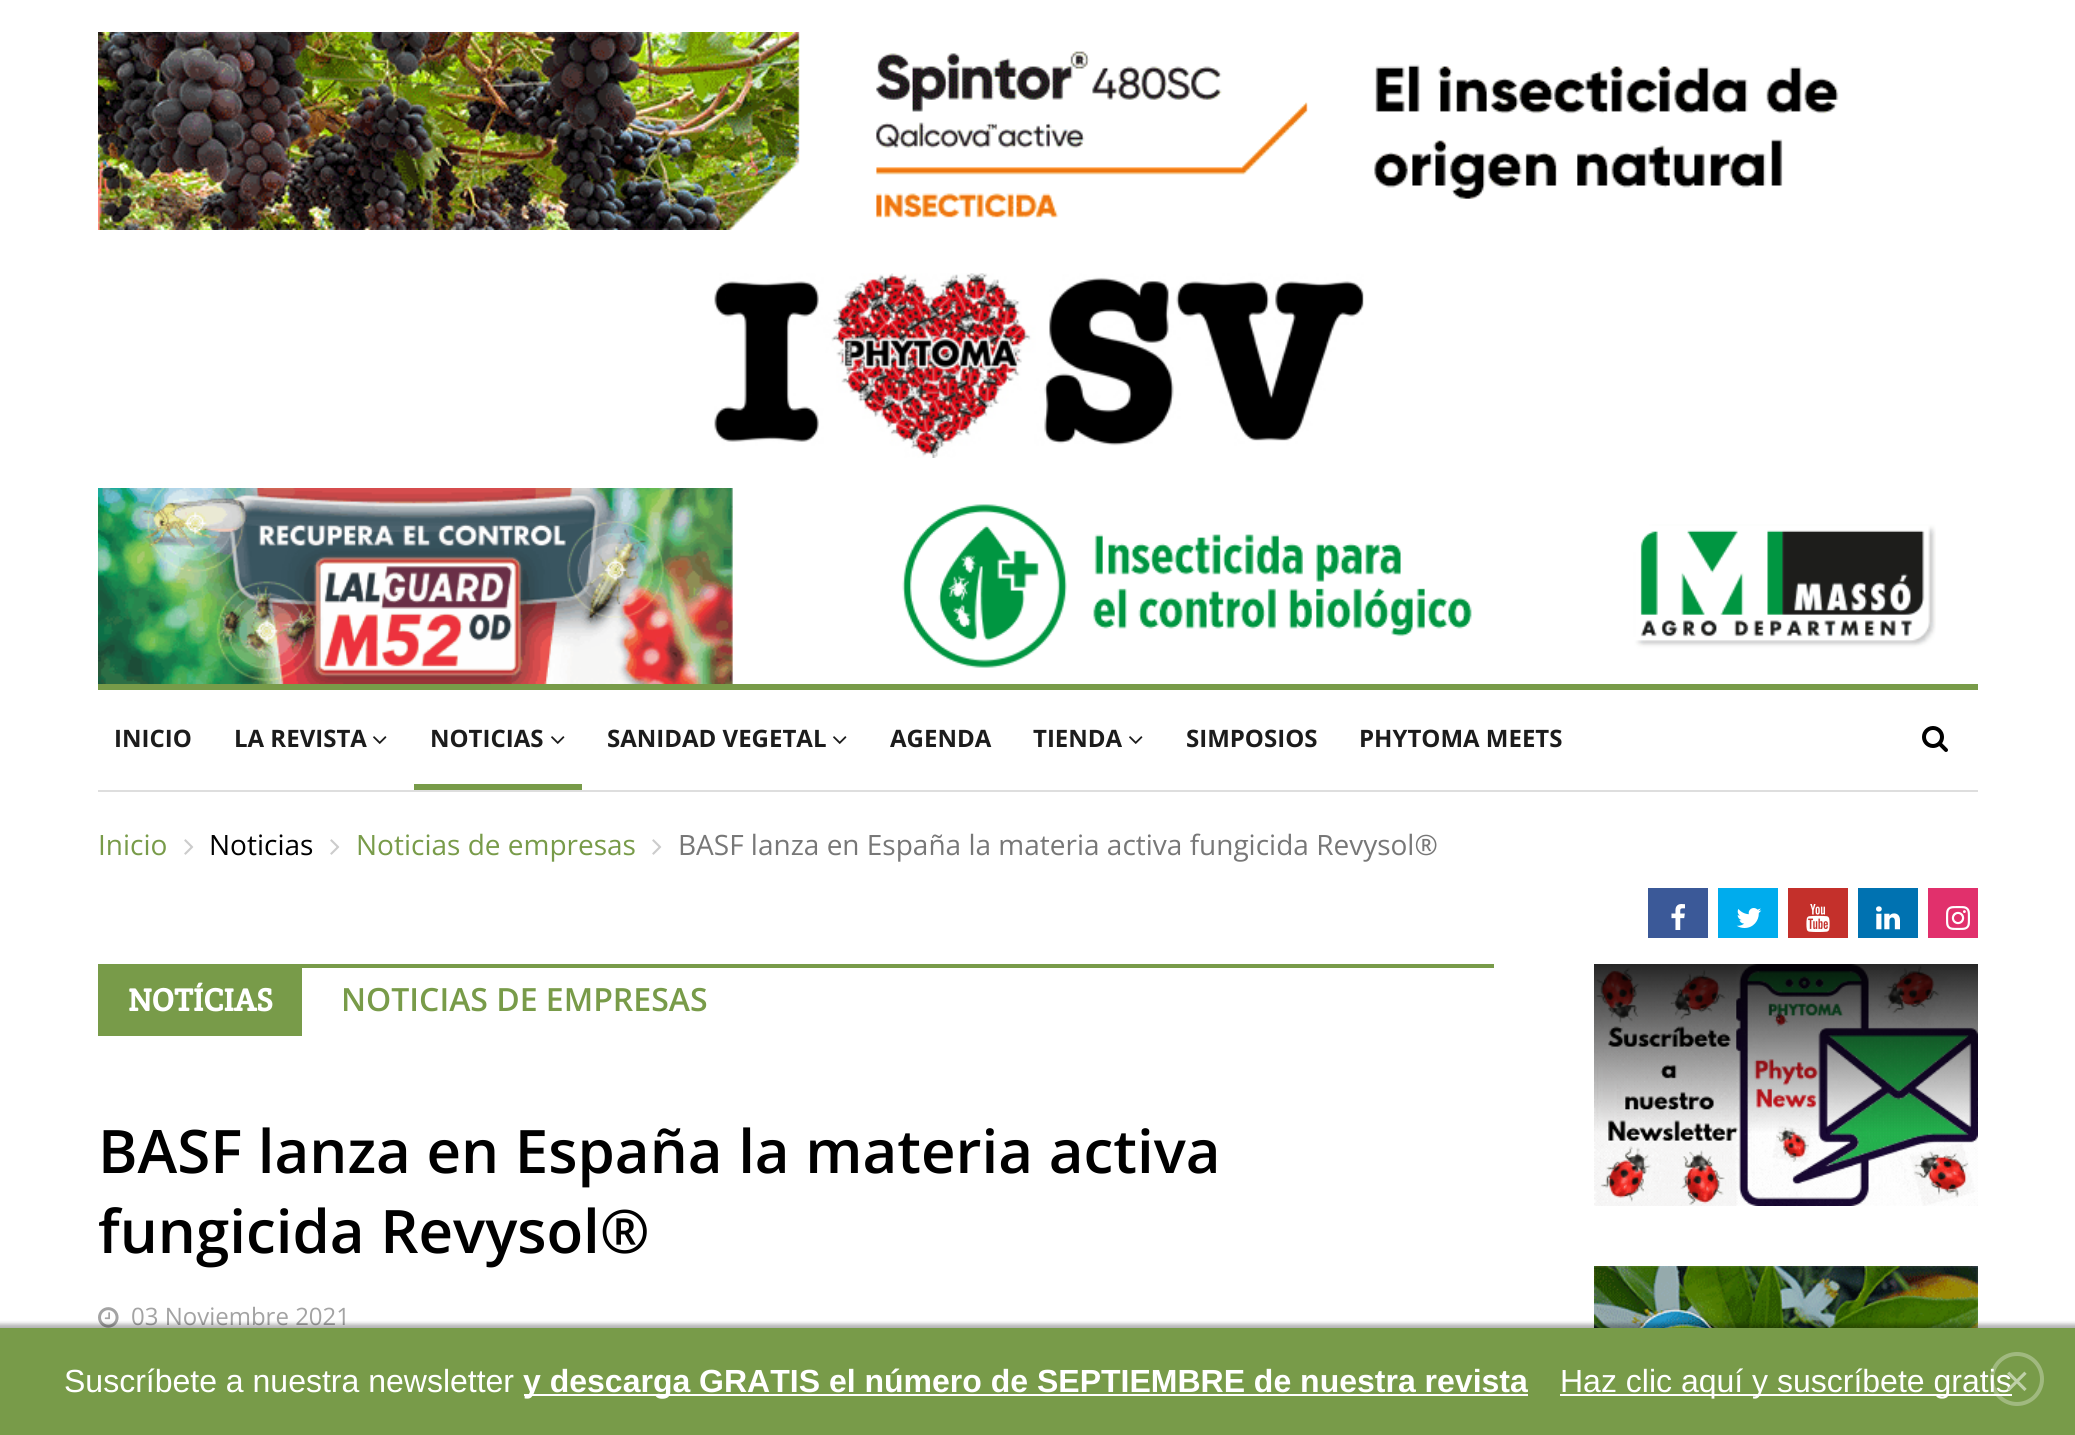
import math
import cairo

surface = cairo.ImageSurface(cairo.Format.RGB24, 2075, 1435)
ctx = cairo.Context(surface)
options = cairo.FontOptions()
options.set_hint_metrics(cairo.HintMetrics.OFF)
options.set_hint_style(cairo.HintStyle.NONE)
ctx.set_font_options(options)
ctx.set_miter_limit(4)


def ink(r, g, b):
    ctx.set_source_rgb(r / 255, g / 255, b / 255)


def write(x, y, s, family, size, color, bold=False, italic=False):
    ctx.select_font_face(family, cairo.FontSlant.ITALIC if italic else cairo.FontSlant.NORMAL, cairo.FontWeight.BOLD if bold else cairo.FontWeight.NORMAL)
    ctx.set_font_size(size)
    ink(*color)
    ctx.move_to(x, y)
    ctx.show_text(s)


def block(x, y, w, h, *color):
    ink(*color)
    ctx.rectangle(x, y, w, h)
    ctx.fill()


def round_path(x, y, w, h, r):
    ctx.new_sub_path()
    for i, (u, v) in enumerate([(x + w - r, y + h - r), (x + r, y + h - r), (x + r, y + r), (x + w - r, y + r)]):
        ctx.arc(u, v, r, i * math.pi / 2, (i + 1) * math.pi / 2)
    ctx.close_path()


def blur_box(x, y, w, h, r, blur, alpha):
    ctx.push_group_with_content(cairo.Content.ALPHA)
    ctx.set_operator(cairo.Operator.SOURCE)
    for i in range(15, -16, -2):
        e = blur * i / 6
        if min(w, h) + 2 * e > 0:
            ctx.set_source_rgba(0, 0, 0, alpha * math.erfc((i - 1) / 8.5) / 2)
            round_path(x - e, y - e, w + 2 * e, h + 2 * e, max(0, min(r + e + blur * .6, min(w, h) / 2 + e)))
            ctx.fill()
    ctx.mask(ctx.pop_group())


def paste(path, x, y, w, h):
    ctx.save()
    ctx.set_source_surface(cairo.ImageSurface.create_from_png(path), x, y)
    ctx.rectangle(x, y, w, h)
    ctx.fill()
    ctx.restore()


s1 = dict(family="Open Sans", size=24, color=(28, 28, 28), bold=True)
s2 = dict(family="Open Sans", size=28, color=(120, 155, 73))
s3 = dict(family="Open Sans", size=28, color=(0, 0, 0))
s4 = dict(family="Open Sans", size=28, color=(119, 119, 119))
s5 = dict(family="Crete Round", size=32, color=(255, 255, 255), bold=True)
s6 = dict(family="Open Sans SemiBold", size=32, color=(120, 155, 73))
s7 = dict(family="Open Sans SemiBold", size=60, color=(0, 0, 0))
s8 = dict(family="Open Sans", size=24, color=(163, 163, 163))
s9 = dict(family="Liberation Sans", size=32, color=(255, 255, 255))
s10 = dict(family="Liberation Sans", size=32, color=(255, 255, 255), bold=True)
s11 = dict(family="Liberation Sans", size=44, color=(191, 208, 169))

ink(255, 255, 255)
ctx.paint()
paste("pic1.png", 98, 32, 1741, 198)
paste("pic2.png", 714, 273, 650, 185)
paste("pic3.png", 98, 488, 1838, 196)
block(98, 684, 1880, 6, 120, 155, 73)
block(98, 790, 1880, 2, 222, 222, 222)
write(114, 747, "INICIO", **s1)
write(234, 747, "LA REVISTA", **s1)
paste("pic4.png", 373, 736, 14, 8)
write(430, 747, "NOTICIAS", **s1)
paste("pic4.png", 551, 736, 14, 8)
block(414, 784, 168, 6, 120, 155, 73)
write(607, 747, "SANIDAD VEGETAL", **s1)
paste("pic4.png", 833, 736, 14, 8)
write(890, 747, "AGENDA", **s1)
write(1033, 747, "TIENDA", **s1)
paste("pic4.png", 1129, 736, 14, 8)
write(1186, 747, "SIMPOSIOS", **s1)
write(1359, 747, "PHYTOMA MEETS", **s1)
paste("pic5.png", 1922, 726, 26, 26)
write(98, 855, "Inicio", **s2)
paste("pic6.png", 184, 839, 10, 16)
write(209, 855, "Noticias", **s3)
paste("pic6.png", 330, 839, 10, 16)
write(356, 855, "Noticias de empresas", **s2)
paste("pic6.png", 652, 839, 10, 16)
write(678, 855, "BASF lanza en España la materia activa fungicida Revysol®", **s4)
block(1648, 888, 60, 50, 59, 89, 152)
paste("pic7.png", 1671, 904, 14, 26)
block(1718, 888, 60, 50, 0, 172, 237)
paste("pic8.png", 1736, 908, 26, 20)
block(1788, 888, 60, 50, 196, 48, 43)
paste("pic9.png", 1806, 904, 24, 28)
block(1858, 888, 60, 50, 0, 114, 177)
paste("pic10.png", 1876, 906, 24, 24)
block(1928, 888, 50, 50, 225, 48, 108)
paste("pic11.png", 1946, 906, 24, 24)
block(98, 964, 1396, 4, 120, 155, 73)
block(98, 968, 204, 68, 120, 155, 73)
write(128, 1011, "NOTÍCIAS", **s5)
write(341, 1011, "NOTICIAS DE EMPRESAS", **s6)
write(98, 1173, "BASF lanza en España la materia activa", **s7)
write(98, 1253, "fungicida Revysol®", **s7)
paste("pic12.png", 98, 1307, 21, 21)
write(131, 1325, "03 Noviembre 2021", **s8)
paste("pic13.png", 1594, 964, 384, 242)
paste("pic14.png", 1594, 1266, 384, 62)
ink(0, 0, 1)
blur_box(-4, 1324, 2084, 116, 0, 2, 0.3)
block(0, 1328, 2075, 107, 120, 155, 73)
write(64, 1392, "Suscríbete a nuestra newsletter", **s9)
block(524, 1394, 1004, 2, 255, 255, 255)
write(523, 1392, "y descarga GRATIS el número de SEPTIEMBRE de nuestra revista", **s10)
block(1560, 1394, 452, 2, 255, 255, 255)
write(1560, 1392, "Haz clic aquí y suscríbete gratis", **s9)
ctx.new_path()
ctx.arc(2017, 1379, 25, 0, 2 * math.pi)
ctx.set_source_rgba(1, 1, 1, 0.3)
ctx.set_line_width(4)
ctx.stroke()
write(2004, 1396, "×", **s11)
surface.write_to_png("screenshot.png")
